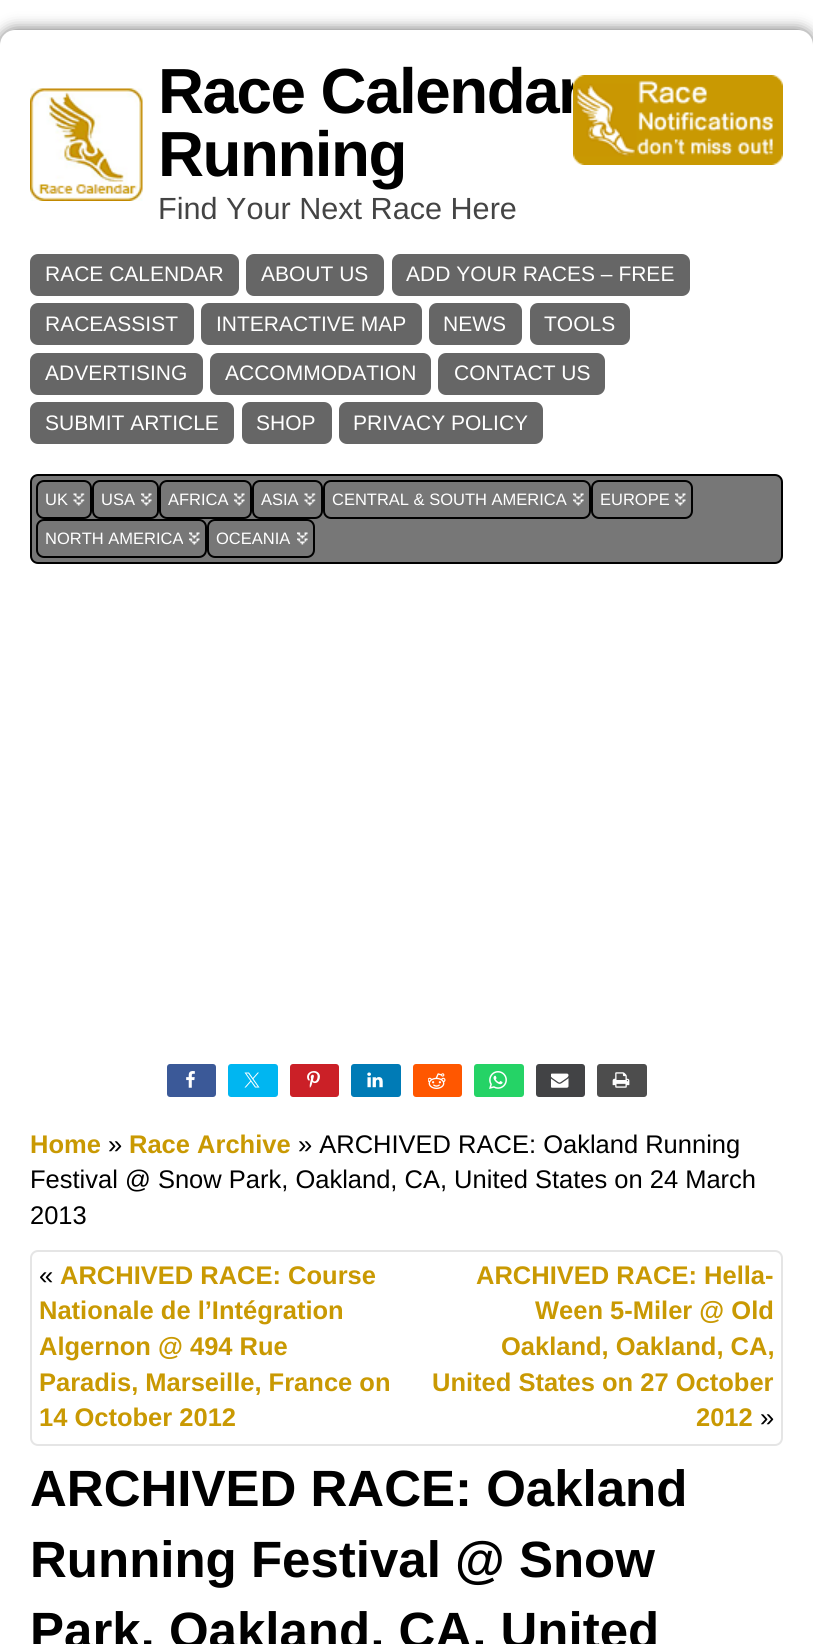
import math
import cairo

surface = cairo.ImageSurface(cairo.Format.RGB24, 813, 1644)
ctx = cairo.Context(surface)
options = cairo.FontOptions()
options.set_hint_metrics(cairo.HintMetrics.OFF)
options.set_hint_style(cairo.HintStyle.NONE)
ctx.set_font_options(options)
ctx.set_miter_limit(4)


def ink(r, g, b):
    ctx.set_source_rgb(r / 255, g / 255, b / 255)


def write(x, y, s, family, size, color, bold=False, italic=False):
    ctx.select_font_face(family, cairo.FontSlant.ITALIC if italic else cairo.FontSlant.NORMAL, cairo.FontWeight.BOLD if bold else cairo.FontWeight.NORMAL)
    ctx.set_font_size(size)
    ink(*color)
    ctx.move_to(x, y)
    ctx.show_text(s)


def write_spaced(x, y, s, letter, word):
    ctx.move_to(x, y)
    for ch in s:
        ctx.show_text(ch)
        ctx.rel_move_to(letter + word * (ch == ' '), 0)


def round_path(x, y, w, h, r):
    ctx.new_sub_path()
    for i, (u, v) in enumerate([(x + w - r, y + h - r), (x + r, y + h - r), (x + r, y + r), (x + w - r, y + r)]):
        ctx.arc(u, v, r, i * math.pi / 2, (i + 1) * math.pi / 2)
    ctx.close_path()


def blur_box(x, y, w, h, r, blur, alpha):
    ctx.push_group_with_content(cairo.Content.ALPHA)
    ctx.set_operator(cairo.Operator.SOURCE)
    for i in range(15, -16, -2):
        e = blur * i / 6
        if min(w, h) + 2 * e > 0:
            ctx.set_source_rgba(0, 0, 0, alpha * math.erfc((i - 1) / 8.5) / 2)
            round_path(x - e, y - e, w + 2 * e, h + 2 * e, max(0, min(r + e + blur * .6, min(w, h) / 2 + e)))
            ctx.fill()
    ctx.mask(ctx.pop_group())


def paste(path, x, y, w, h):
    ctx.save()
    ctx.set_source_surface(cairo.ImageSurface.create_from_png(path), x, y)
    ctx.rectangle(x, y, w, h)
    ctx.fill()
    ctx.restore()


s1 = dict(family="Liberation Sans", size=30.6, color=(68, 68, 68))
s2 = dict(family="Liberation Sans", size=21, color=(255, 255, 255))
s3 = dict(family="Liberation Sans", size=16.5, color=(255, 255, 255))
s4 = dict(family="Liberation Sans", size=25.5, color=(201, 153, 2), bold=True)
s5 = dict(family="Liberation Sans", size=25.5, color=(0, 0, 0))
s6 = dict(family="Liberation Sans", size=51, color=(0, 0, 0), bold=True)

ink(255, 255, 255)
ctx.paint()
paste("pic1.png", 0, 0, 813, 45)
ink(102, 102, 102)
blur_box(0, 30, 813, 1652, 15, 7.5, 1)
ink(255, 255, 255)
round_path(0, 30, 813, 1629, 15)
ctx.fill()
paste("pic2.png", 30, 88, 113, 113)
ctx.select_font_face("Liberation Sans", cairo.FontSlant.NORMAL, cairo.FontWeight.BOLD)
ctx.set_font_size(63.75)
ink(0, 0, 0)
write_spaced(158, 113, "Race Calendar", -1.5, 0)
write_spaced(158, 176, "Running", -1.5, 0)
write(158, 219, "Find Your Next Race Here", **s1)
paste("pic3.png", 573, 75, 210, 90)
ink(102, 102, 102)
round_path(30, 254, 209, 42, 8)
ctx.fill()
write(45, 281, "RACE CALENDAR", **s2)
ink(102, 102, 102)
round_path(246, 254, 138, 42, 8)
ctx.fill()
write(261, 281, "ABOUT US", **s2)
ink(102, 102, 102)
round_path(392, 254, 298, 42, 8)
ctx.fill()
write(406, 281, "ADD YOUR RACES – FREE", **s2)
ink(102, 102, 102)
round_path(30, 303, 164, 42, 8)
ctx.fill()
write(45, 331, "RACEASSIST", **s2)
ink(102, 102, 102)
round_path(201, 303, 221, 42, 8)
ctx.fill()
write(216, 331, "INTERACTIVE MAP", **s2)
ink(102, 102, 102)
round_path(429, 303, 93, 42, 8)
ctx.fill()
write(443, 331, "NEWS", **s2)
ink(102, 102, 102)
round_path(530, 303, 100, 42, 8)
ctx.fill()
write(544, 331, "TOOLS", **s2)
ink(102, 102, 102)
round_path(30, 353, 173, 42, 8)
ctx.fill()
write(45, 380, "ADVERTISING", **s2)
ink(102, 102, 102)
round_path(210, 353, 221, 42, 8)
ctx.fill()
write(225, 380, "ACCOMMODATION", **s2)
ink(102, 102, 102)
round_path(438, 353, 167, 42, 8)
ctx.fill()
write(454, 380, "CONTACT US", **s2)
ink(102, 102, 102)
round_path(30, 402, 204, 42, 8)
ctx.fill()
write(45, 430, "SUBMIT ARTICLE", **s2)
ink(102, 102, 102)
round_path(242, 402, 90, 42, 8)
ctx.fill()
write(256, 430, "SHOP", **s2)
ink(102, 102, 102)
round_path(339, 402, 204, 42, 8)
ctx.fill()
write(353, 430, "PRIVACY POLICY", **s2)
ink(119, 119, 119)
round_path(31, 475, 751, 88, 7)
ctx.fill_preserve()
ink(0, 0, 0)
ctx.stroke()
paste("pic4.png", 73, 493, 12, 13)
round_path(37, 481, 54, 37, 7)
ctx.stroke()
write(45, 505, "UK", **s3)
paste("pic5.png", 141, 493, 11, 13)
round_path(93, 481, 65, 37, 7)
ink(0, 0, 0)
ctx.stroke()
write(101, 505, "USA", **s3)
paste("pic5.png", 234, 493, 11, 13)
round_path(160, 481, 91, 37, 7)
ink(0, 0, 0)
ctx.stroke()
write(168, 505, "AFRICA", **s3)
paste("pic4.png", 304, 493, 12, 13)
round_path(253, 481, 69, 37, 7)
ink(0, 0, 0)
ctx.stroke()
write(261, 505, "ASIA", **s3)
paste("pic6.png", 573, 493, 11, 13)
round_path(324, 481, 266, 37, 7)
ink(0, 0, 0)
ctx.stroke()
write(332, 505, "CENTRAL & SOUTH AMERICA", **s3)
paste("pic5.png", 675, 493, 11, 13)
round_path(592, 481, 100, 37, 7)
ink(0, 0, 0)
ctx.stroke()
write(600, 505, "EUROPE", **s3)
paste("pic5.png", 189, 532, 11, 13)
round_path(37, 520, 169, 37, 7)
ink(0, 0, 0)
ctx.stroke()
write(45, 544, "NORTH AMERICA", **s3)
paste("pic6.png", 297, 532, 11, 13)
round_path(208, 520, 106, 37, 7)
ink(0, 0, 0)
ctx.stroke()
write(216, 544, "OCEANIA", **s3)
ink(59, 89, 152)
round_path(167, 1064, 49, 33, 3)
ctx.fill()
paste("pic7.png", 186, 1071, 9, 17)
ink(0, 182, 241)
round_path(228, 1064, 50, 33, 3)
ctx.fill()
paste("pic8.png", 244, 1072, 16, 16)
ink(203, 32, 39)
round_path(290, 1064, 49, 33, 3)
ctx.fill()
paste("pic9.png", 307, 1071, 13, 17)
ink(0, 123, 182)
round_path(351, 1064, 50, 33, 3)
ctx.fill()
paste("pic10.png", 367, 1072, 16, 16)
ink(255, 87, 0)
round_path(413, 1064, 49, 33, 3)
ctx.fill()
paste("pic11.png", 428, 1073, 18, 16)
ink(37, 211, 102)
round_path(474, 1064, 50, 33, 3)
ctx.fill()
paste("pic12.png", 489, 1071, 18, 18)
ink(66, 67, 69)
round_path(536, 1064, 49, 33, 3)
ctx.fill()
paste("pic13.png", 551, 1073, 18, 15)
ink(77, 77, 77)
round_path(597, 1064, 50, 33, 3)
ctx.fill()
paste("pic14.png", 612, 1072, 18, 16)
write(30, 1153, "Home", **s4)
write(108, 1153, "»", **s5)
write(129, 1153, "Race Archive", **s4)
write(298, 1153, "» ARCHIVED RACE: Oakland Running", **s5)
write(30, 1188, "Festival @ Snow Park, Oakland, CA, United States on 24 March", **s5)
write(30, 1224, "2013", **s5)
round_path(31, 1251, 751, 194, 7)
ink(229, 229, 229)
ctx.stroke()
write(39, 1284, "«", **s5)
write(60, 1284, "ARCHIVED RACE: Course", **s4)
write(39, 1319, "Nationale de l’Intégration", **s4)
write(39, 1355, "Algernon @ 494 Rue", **s4)
write(39, 1391, "Paradis, Marseille, France on", **s4)
write(39, 1426, "14 October 2012", **s4)
write(476, 1284, "ARCHIVED RACE: Hella-", **s4)
write(535, 1319, "Ween 5-Miler @ Old", **s4)
write(501, 1355, "Oakland, Oakland, CA,", **s4)
write(432, 1391, "United States on 27 October", **s4)
write(696, 1426, "2012", **s4)
write(760, 1426, "»", **s5)
write(30, 1506, "ARCHIVED RACE: Oakland", **s6)
write(30, 1577, "Running Festival @ Snow", **s6)
write(30, 1648, "Park, Oakland, CA, United", **s6)
surface.write_to_png("screenshot.png")
